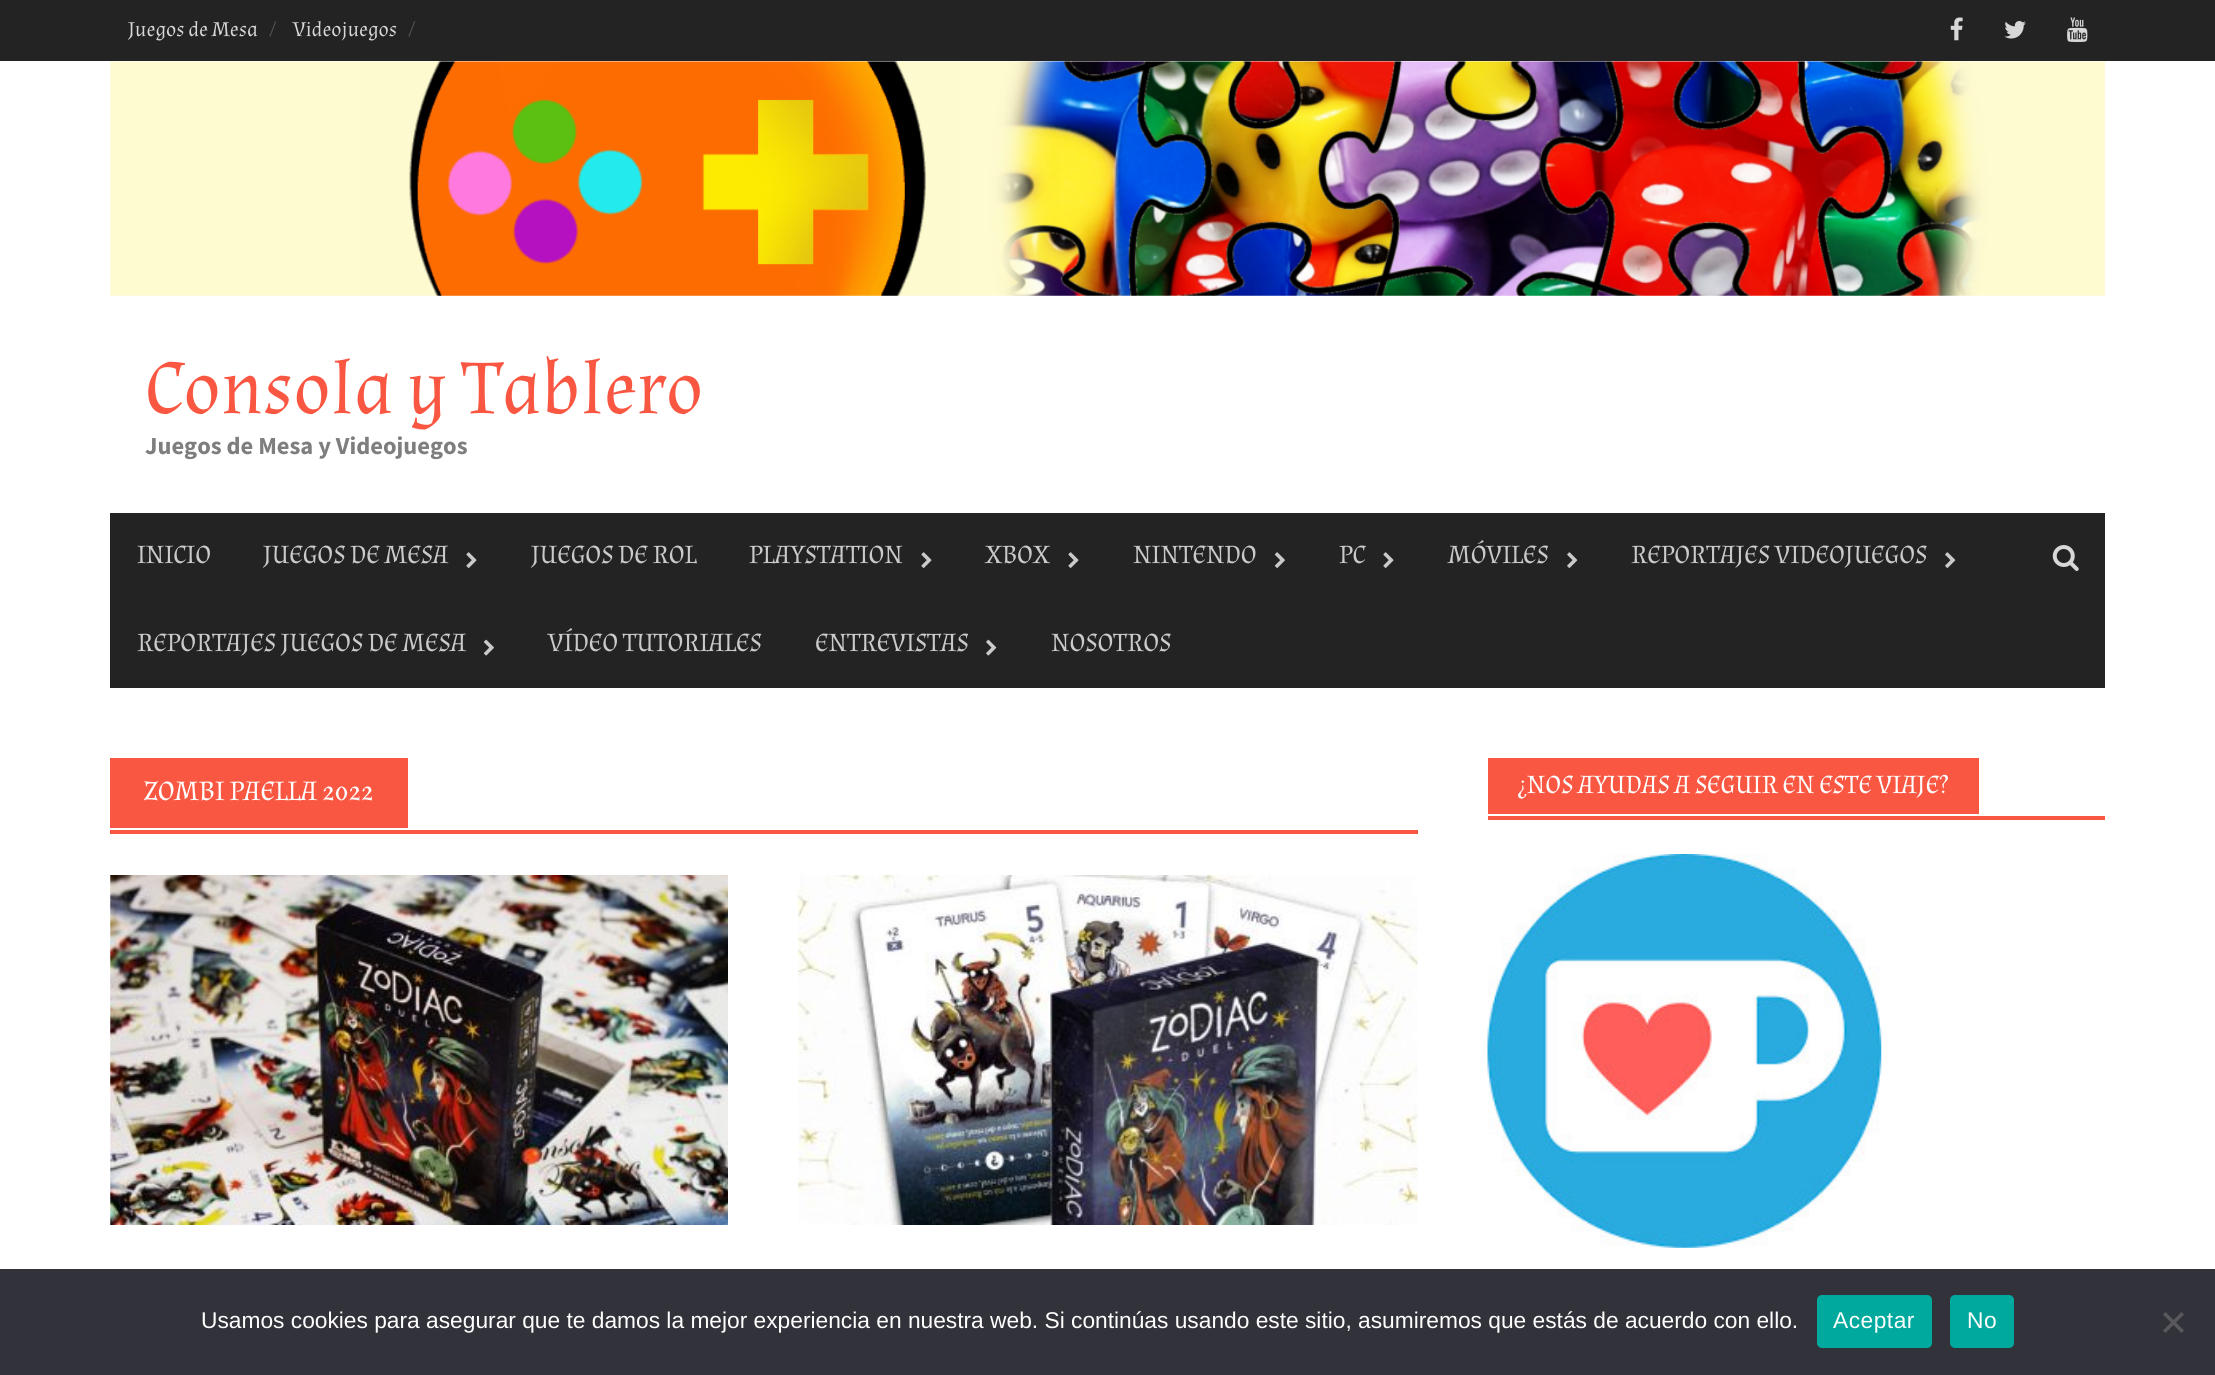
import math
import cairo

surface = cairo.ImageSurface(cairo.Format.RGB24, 2215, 1375)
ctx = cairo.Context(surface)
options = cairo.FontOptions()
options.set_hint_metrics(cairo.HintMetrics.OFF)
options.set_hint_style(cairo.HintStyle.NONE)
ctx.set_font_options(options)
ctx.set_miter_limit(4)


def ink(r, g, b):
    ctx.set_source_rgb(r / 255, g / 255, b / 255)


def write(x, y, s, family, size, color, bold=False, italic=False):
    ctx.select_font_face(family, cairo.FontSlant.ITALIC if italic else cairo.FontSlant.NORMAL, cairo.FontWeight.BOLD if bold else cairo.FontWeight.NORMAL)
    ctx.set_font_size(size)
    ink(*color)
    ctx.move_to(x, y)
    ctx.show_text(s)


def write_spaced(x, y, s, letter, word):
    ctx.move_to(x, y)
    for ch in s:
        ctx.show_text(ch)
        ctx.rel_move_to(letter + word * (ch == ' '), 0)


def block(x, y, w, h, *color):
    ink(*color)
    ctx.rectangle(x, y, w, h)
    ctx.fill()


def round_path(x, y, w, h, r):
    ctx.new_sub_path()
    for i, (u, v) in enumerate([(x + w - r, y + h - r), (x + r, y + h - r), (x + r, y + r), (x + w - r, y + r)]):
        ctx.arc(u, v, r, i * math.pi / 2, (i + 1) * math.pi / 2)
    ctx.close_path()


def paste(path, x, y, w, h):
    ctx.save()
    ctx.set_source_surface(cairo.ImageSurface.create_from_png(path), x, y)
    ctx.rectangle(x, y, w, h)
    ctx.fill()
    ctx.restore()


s1 = dict(family="Almendra", size=21, color=(215, 215, 215))
s2 = dict(family="Almendra", size=21, color=(85, 85, 85))
s3 = dict(family="Almendra", size=77, color=(250, 87, 66))
s4 = dict(family="Source Sans Pro", size=24.5, color=(126, 126, 126), bold=True)
s5 = dict(family="Almendra", size=26.25, color=(202, 202, 202))
s6 = dict(family="Almendra", size=28, color=(255, 255, 255))
s7 = dict(family="Almendra", size=26.25, color=(255, 255, 255))
s8 = dict(family="Liberation Sans", size=22.75, color=(255, 255, 255))

ink(255, 255, 255)
ctx.paint()
block(0, 0, 2215, 61, 35, 35, 35)
write(128, 36, "Juegos de Mesa", **s1)
write(269, 36, "/", **s2)
write(293, 36, "Videojuegos", **s1)
write(408, 36, "/", **s2)
paste("pic1.png", 1950, 17, 13, 24)
paste("pic2.png", 2004, 21, 22, 18)
paste("pic3.png", 2067, 17, 21, 25)
paste("pic4.png", 110, 61, 1995, 235)
write(145, 413, "Consola y Tablero", **s3)
write(145, 454, "Juegos de Mesa y Videojuegos", **s4)
block(110, 513, 1995, 175, 35, 35, 35)
write(137, 563, "INICIO", **s5)
write(263, 563, "JUEGOS DE MESA", **s5)
paste("pic5.png", 466, 552, 11, 16)
write(531, 563, "JUEGOS DE ROL", **s5)
write(749, 563, "PLAYSTATION", **s5)
paste("pic6.png", 921, 552, 11, 16)
write(985, 563, "XBOX", **s5)
paste("pic7.png", 1068, 552, 11, 16)
write(1133, 563, "NINTENDO", **s5)
paste("pic8.png", 1274, 552, 11, 16)
write(1339, 563, "PC", **s5)
paste("pic7.png", 1383, 552, 11, 16)
write(1448, 563, "MÓVILES", **s5)
paste("pic9.png", 1567, 552, 11, 16)
write(1631, 563, "REPORTAJES VIDEOJUEGOS", **s5)
paste("pic9.png", 1945, 552, 11, 16)
write(137, 651, "REPORTAJES JUEGOS DE MESA", **s5)
paste("pic10.png", 483, 639, 11, 17)
write(548, 651, "VÍDEO TUTORIALES", **s5)
write(815, 651, "ENTREVISTAS", **s5)
paste("pic11.png", 986, 639, 11, 17)
write(1051, 651, "NOSOTROS", **s5)
paste("pic12.png", 2052, 545, 27, 26)
block(110, 830, 1308, 4, 250, 87, 66)
block(110, 758, 298, 70, 250, 87, 66)
write(144, 800, "ZOMBI PAELLA 2022", **s6)
paste("pic13.png", 110, 875, 618, 350)
paste("pic14.png", 798, 875, 620, 350)
block(1488, 816, 617, 4, 250, 87, 66)
block(1488, 758, 491, 56, 250, 87, 66)
write(1518, 793, "¿NOS AYUDAS A SEGUIR EN ESTE VIAJE?", **s7)
paste("pic15.png", 1487, 854, 395, 394)
block(0, 1269, 2215, 106, 50, 50, 58)
write(201, 1328, "Usamos cookies para asegurar que te damos la mejor experiencia en nuestra web. Si continúas usando este sitio, asumiremos que estás de acuerdo con ello.", **s8)
ink(0, 169, 157)
round_path(1817, 1295, 115, 53, 5)
ctx.fill()
ink(255, 255, 255)
write_spaced(1833, 1328, "Aceptar", 0.5, 0)
ink(0, 169, 157)
round_path(1950, 1295, 64, 53, 5)
ctx.fill()
ink(255, 255, 255)
write_spaced(1967, 1328, "No", 0.5, 0)
ink(89, 89, 93)
ctx.new_path()
ctx.move_to(2181.5, 1312)
ctx.line_to(2184, 1314.5)
ctx.line_to(2165.5, 1333)
ctx.line_to(2163, 1330.5)
ctx.close_path()
ctx.fill()
ctx.new_path()
ctx.move_to(2163, 1314.5)
ctx.line_to(2165.5, 1312)
ctx.line_to(2184, 1330.5)
ctx.line_to(2181.5, 1333)
ctx.close_path()
ctx.fill()
surface.write_to_png("screenshot.png")
